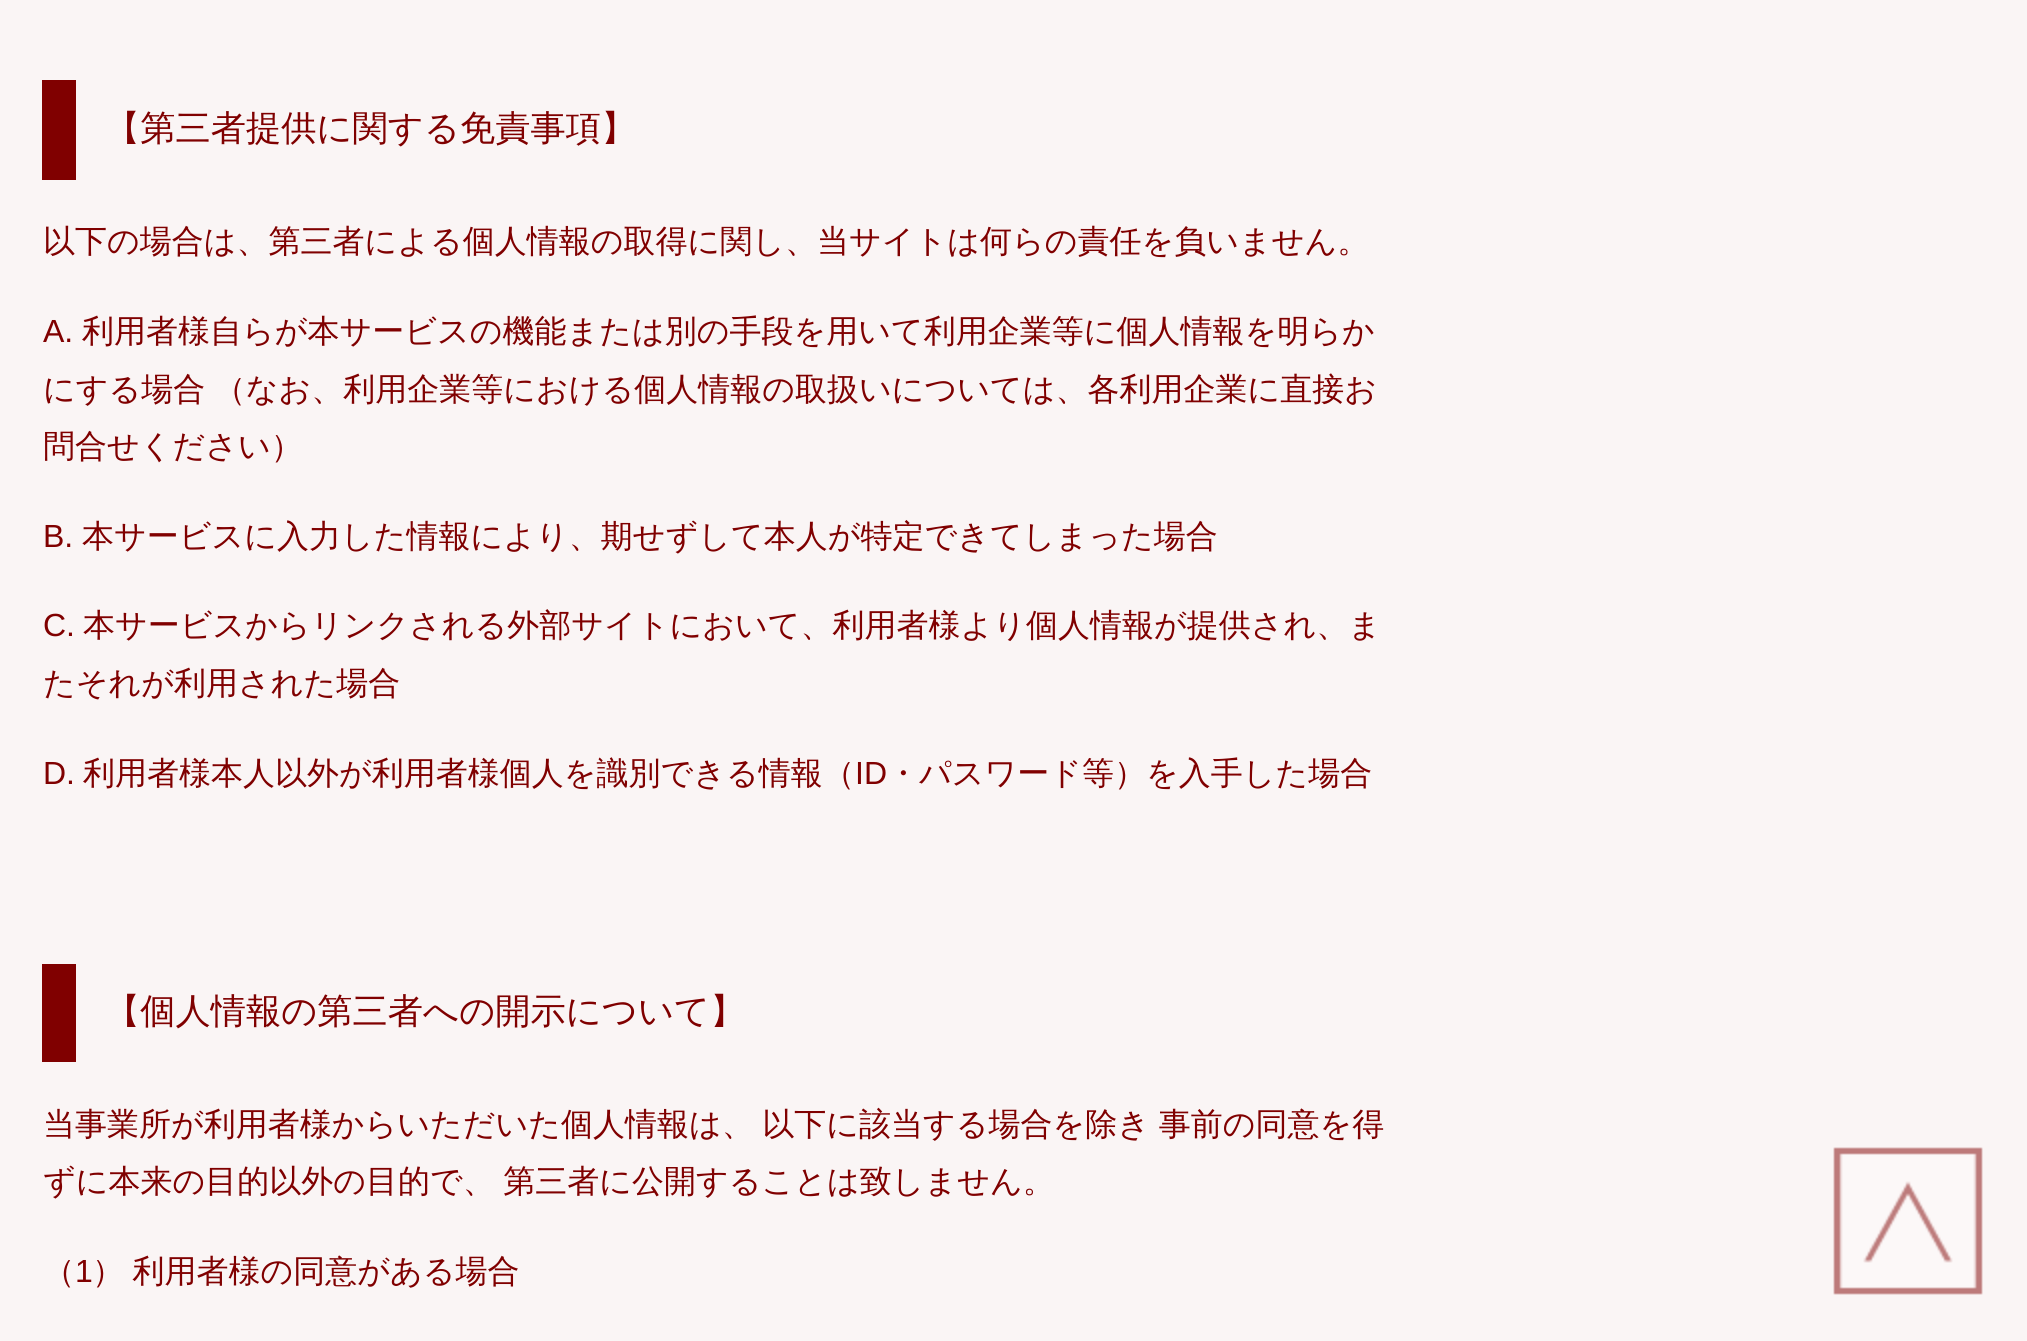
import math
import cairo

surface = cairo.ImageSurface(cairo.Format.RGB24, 2027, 1341)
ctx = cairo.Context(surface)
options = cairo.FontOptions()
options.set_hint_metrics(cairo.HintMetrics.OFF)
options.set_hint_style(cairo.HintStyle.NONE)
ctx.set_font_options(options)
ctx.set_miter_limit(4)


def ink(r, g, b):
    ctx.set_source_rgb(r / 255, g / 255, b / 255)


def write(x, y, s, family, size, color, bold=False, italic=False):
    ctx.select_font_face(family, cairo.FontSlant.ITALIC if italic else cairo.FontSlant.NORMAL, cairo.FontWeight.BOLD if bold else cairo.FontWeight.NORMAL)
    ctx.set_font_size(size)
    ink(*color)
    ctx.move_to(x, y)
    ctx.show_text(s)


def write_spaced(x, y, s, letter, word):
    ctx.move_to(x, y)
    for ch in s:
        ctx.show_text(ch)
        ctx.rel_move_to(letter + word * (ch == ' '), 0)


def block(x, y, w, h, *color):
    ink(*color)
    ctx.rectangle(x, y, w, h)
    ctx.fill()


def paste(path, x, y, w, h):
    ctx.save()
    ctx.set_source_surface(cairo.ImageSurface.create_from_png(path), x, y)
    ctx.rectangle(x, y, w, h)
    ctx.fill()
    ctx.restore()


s1 = dict(family="WenQuanYi Zen Hei Medium", size=35.25, color=(128, 0, 0))
s2 = dict(family="WenQuanYi Zen Hei Medium", size=32, color=(128, 0, 0))
s3 = dict(family="Liberation Sans", size=32, color=(128, 0, 0))

ink(250, 245, 245)
ctx.paint()
block(42, 80, 34, 100, 128, 0, 0)
write(105, 140, "【第三者提供に関する免責事項】", **s1)
write(43, 252, "以下の場合は、第三者による個人情報の取得に関し、当サイトは何らの責任を負いません。", **s2)
write(43, 342, "A.", **s3)
write(82, 342, "利用者様自らが本サービスの機能または別の手段を用いて利用企業等に個人情報を明らか", **s2)
write_spaced(43, 400, "にする場合 （なお、利用企業等における個人情報の取扱いについては、各利用企業に直接お", 0, -1)
write(43, 457, "問合せください）", **s2)
write(43, 547, "B.", **s3)
write(82, 547, "本サービスに入力した情報により、期せずして本人が特定できてしまった場合", **s2)
write(43, 636, "C.", **s3)
write(83, 636, "本サービスからリンクされる外部サイトにおいて、利用者様より個人情報が提供され、ま", **s2)
write(43, 694, "たそれが利用された場合", **s2)
write(43, 784, "D.", **s3)
write(83, 784, "利用者様本人以外が利用者様個人を識別できる情報（", **s2)
write(855, 784, "ID", **s3)
write(887, 784, "・パスワード等）を入手した場合", **s2)
block(42, 964, 34, 98, 128, 0, 0)
write(105, 1023, "【個人情報の第三者への開示について】", **s1)
ctx.set_font_size(32)
write_spaced(43, 1135, "当事業所が利用者様からいただいた個人情報は、 以下に該当する場合を除き 事前の同意を得", 0, -1)
write_spaced(43, 1192, "ずに本来の目的以外の目的で、 第三者に公開することは致しません。", 0, -1)
write(43, 1282, "（", **s2)
write(75, 1282, "1", **s3)
ctx.select_font_face("WenQuanYi Zen Hei Medium")
write_spaced(92, 1282, "） 利用者様の同意がある場合", 0, -1)
paste("pic1.png", 1833, 1147, 150, 148)
surface.write_to_png("screenshot.png")
